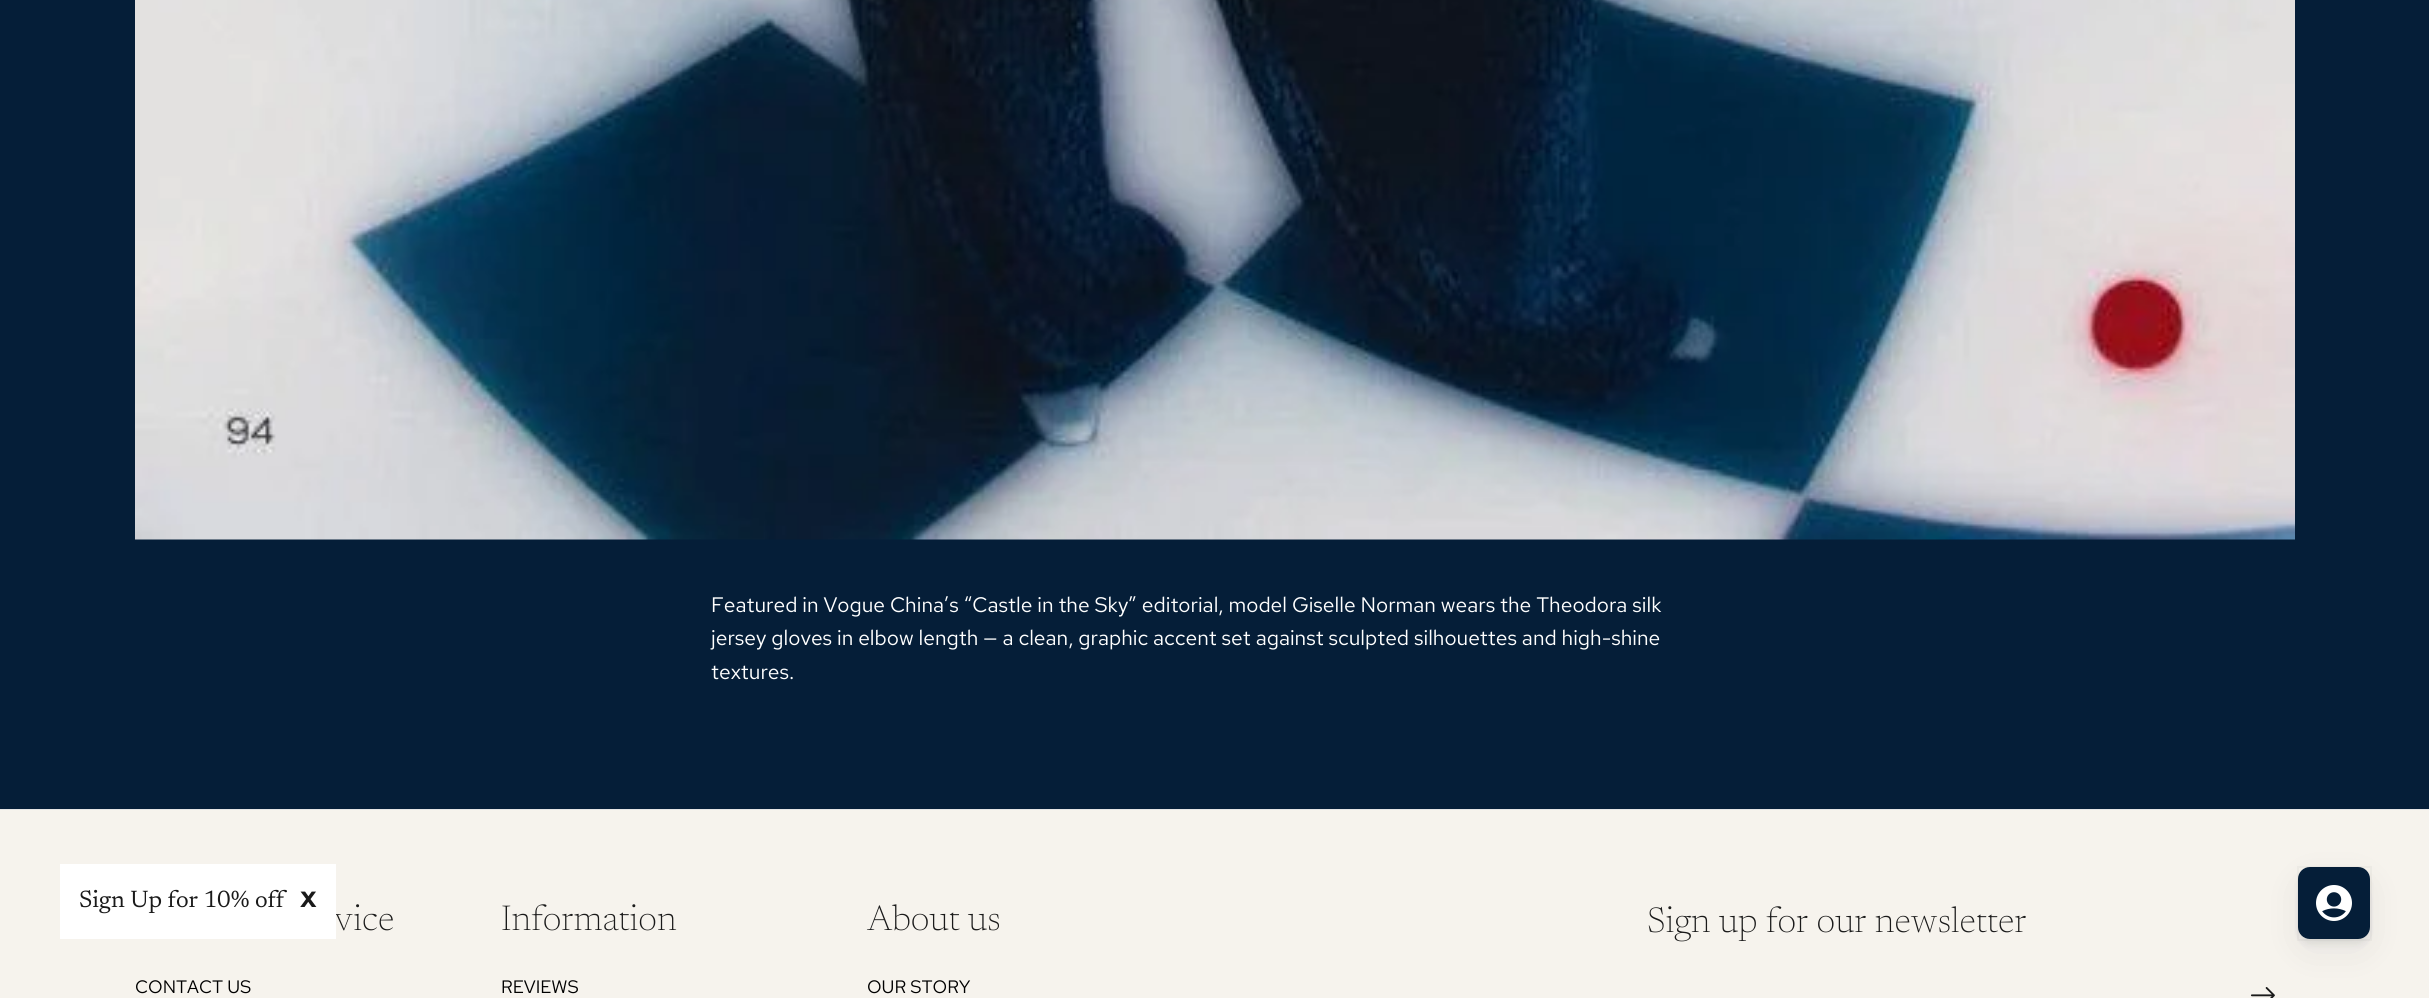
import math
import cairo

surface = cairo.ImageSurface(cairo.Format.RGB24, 2429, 998)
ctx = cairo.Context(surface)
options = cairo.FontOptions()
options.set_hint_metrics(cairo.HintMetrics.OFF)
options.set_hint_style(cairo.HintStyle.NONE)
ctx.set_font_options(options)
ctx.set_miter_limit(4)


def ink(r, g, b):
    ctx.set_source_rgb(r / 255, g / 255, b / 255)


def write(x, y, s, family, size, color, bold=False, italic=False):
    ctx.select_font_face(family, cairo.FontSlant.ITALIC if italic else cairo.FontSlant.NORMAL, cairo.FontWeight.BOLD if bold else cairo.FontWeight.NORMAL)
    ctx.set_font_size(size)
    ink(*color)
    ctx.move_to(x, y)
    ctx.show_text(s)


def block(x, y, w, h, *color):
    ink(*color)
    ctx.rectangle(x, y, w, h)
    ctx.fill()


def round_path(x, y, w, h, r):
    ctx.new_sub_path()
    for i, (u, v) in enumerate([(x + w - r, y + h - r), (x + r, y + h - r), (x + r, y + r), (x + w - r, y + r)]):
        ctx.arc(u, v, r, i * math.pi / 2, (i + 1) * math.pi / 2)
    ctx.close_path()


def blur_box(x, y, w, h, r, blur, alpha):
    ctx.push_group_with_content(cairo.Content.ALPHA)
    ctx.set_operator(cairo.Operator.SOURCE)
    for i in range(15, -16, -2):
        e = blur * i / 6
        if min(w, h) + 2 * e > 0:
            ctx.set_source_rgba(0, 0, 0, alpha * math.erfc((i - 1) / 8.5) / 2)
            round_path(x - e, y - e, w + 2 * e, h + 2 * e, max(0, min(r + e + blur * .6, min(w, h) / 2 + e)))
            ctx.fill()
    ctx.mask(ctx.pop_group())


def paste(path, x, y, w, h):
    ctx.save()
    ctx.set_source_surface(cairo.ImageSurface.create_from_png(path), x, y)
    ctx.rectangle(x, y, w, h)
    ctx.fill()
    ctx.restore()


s1 = dict(family="Red Hat Text", size=21, color=(255, 255, 255))
s2 = dict(family="Newsreader ExtraLight", size=36, color=(26, 26, 26))
s3 = dict(family="Newsreader", size=24, color=(26, 26, 26))
s4 = dict(family="Red Hat Text", size=22, color=(26, 26, 26), bold=True)
s5 = dict(family="Red Hat Text", size=18, color=(0, 0, 0))

ink(5, 30, 56)
ctx.paint()
paste("pic1.png", 135, 0, 2160, 540)
write(711, 612, "Featured in Vogue China’s “Castle in the Sky” editorial, model Giselle Norman wears the Theodora silk", **s1)
write(711, 645, "jersey gloves in elbow length — a clean, graphic accent set against sculpted silhouettes and high-shine", **s1)
write(711, 679, "textures.", **s1)
block(0, 809, 2429, 1, 230, 230, 230)
block(0, 810, 2429, 188, 246, 243, 237)
write(334, 930, "vice", **s2)
block(60, 864, 276, 75, 255, 255, 255)
write(79, 907, "Sign Up for 10% off", **s3)
write(300, 907, "X", **s4)
paste("pic3.png", 2250, 987, 25, 11)
ink(55, 63, 71)
blur_box(2298, 879, 72, 72, 12, 18, 0.08)
blur_box(2298, 873, 72, 72, 12, 3, 0.08)
ctx.rectangle(2298, 867, 73, 73)
ctx.set_source_rgba(0.216, 0.247, 0.278, 0.04)
ctx.stroke()
ink(5, 30, 56)
round_path(2298, 867, 72, 72, 12)
ctx.fill()
paste("pic2.png", 2316, 885, 36, 36)
write(135, 993, "CONTACT US", **s5)
write(501, 930, "Information", **s2)
write(501, 993, "REVIEWS", **s5)
write(867, 930, "About us", **s2)
write(867, 993, "OUR STORY", **s5)
write(1647, 932, "Sign up for our newsletter", **s2)
surface.write_to_png("screenshot.png")
